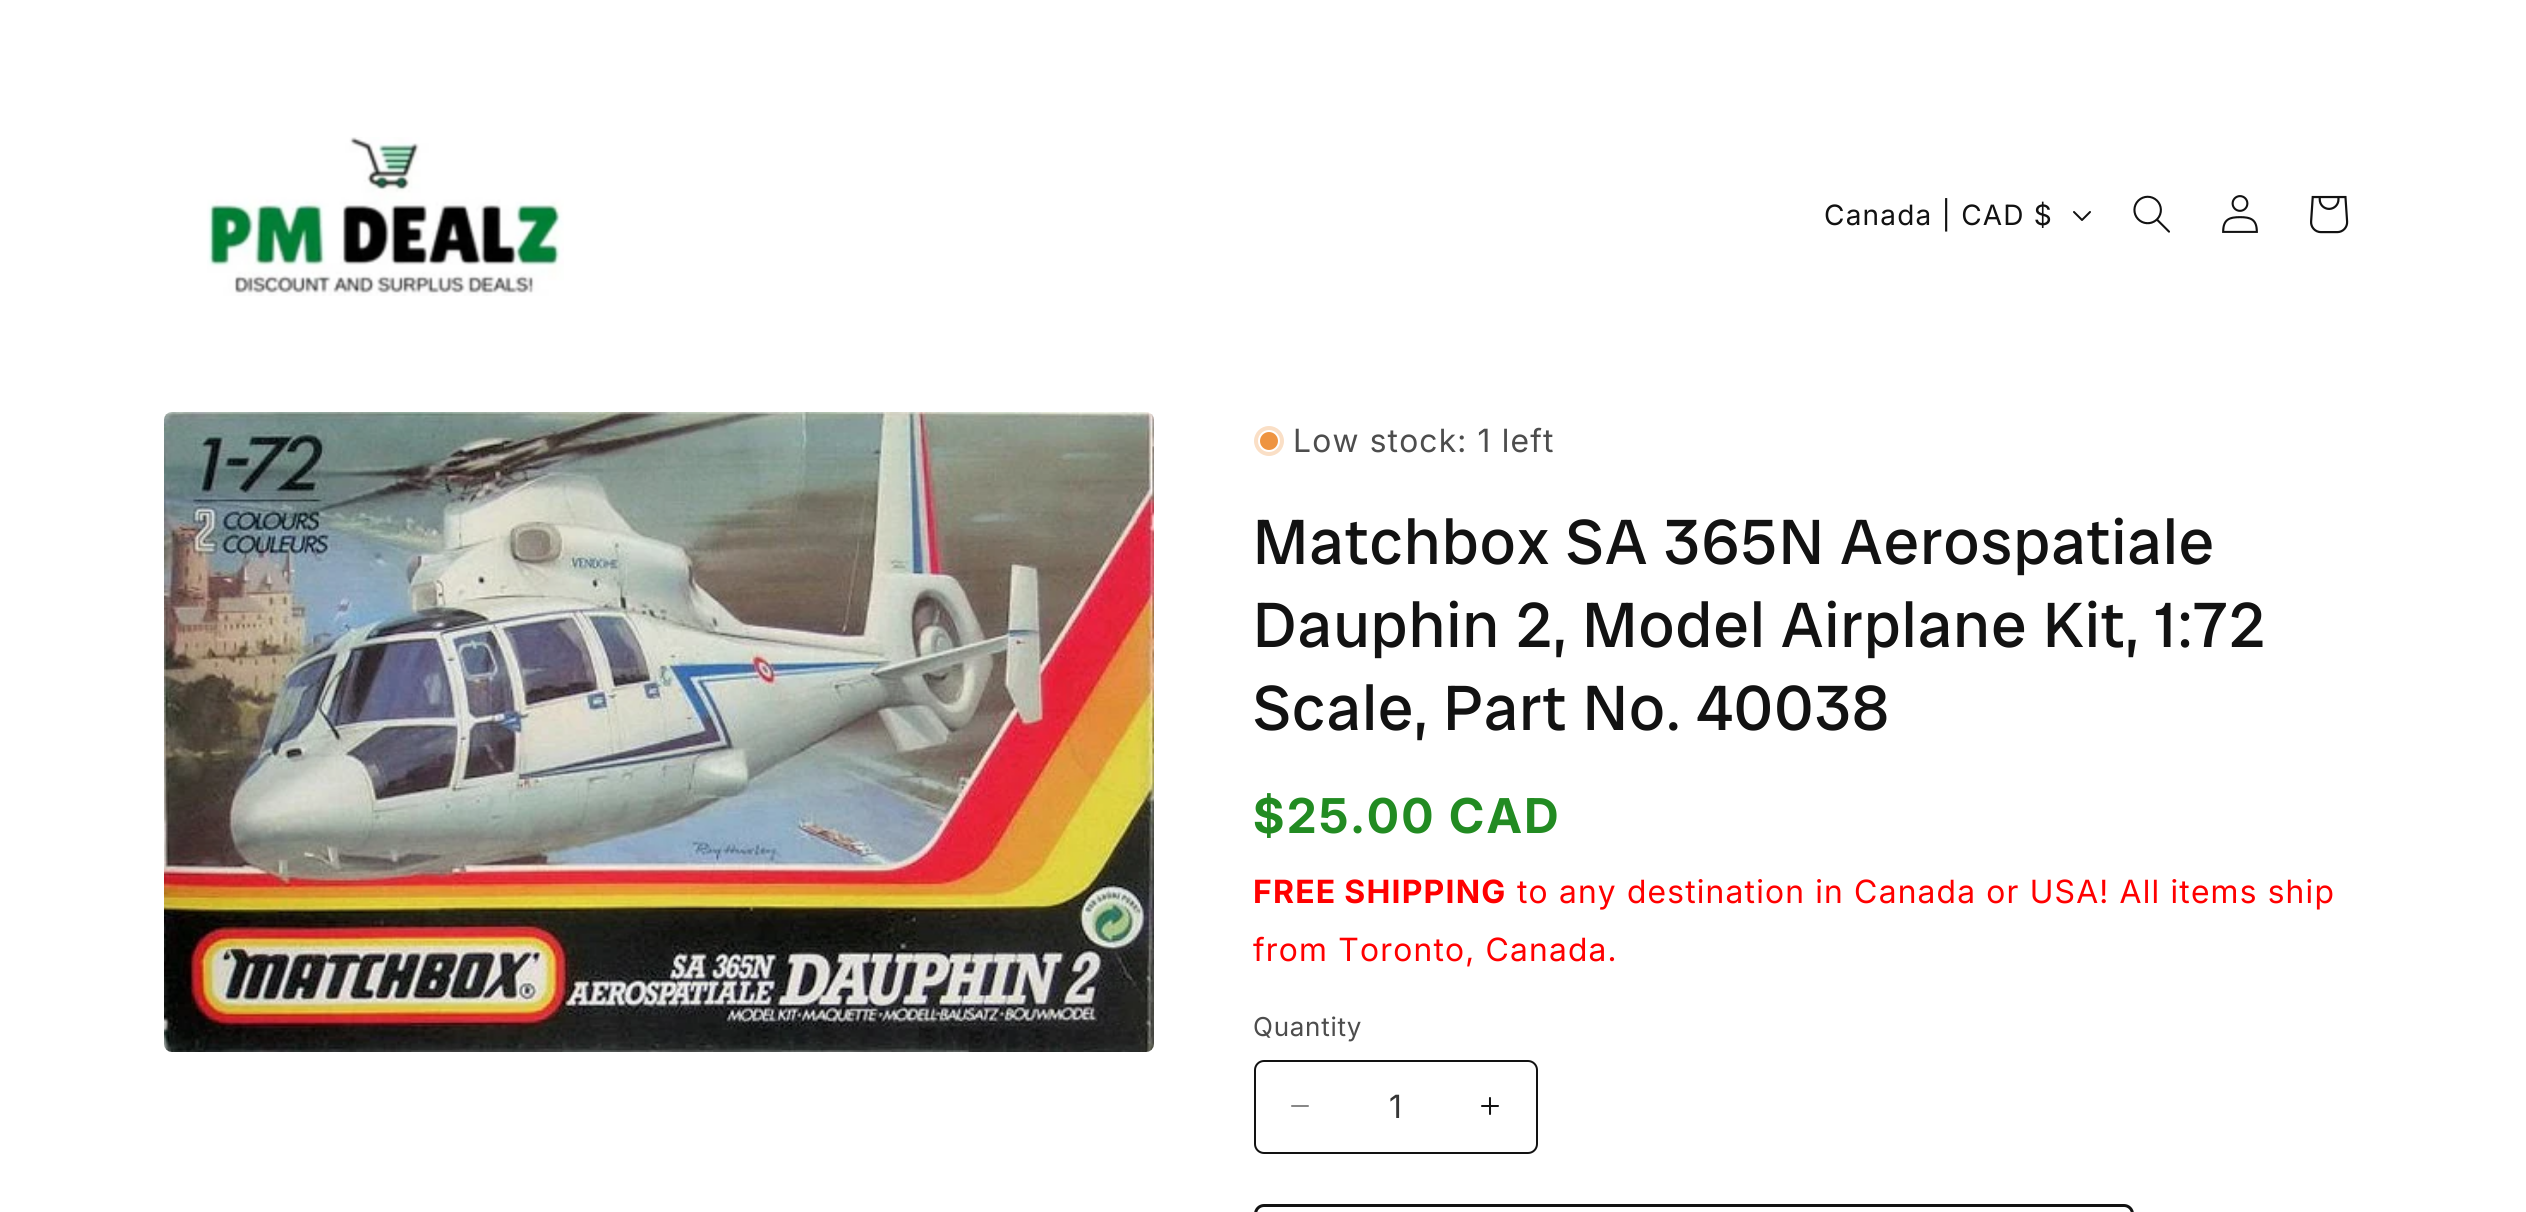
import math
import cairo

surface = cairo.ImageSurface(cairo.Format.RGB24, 2526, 1212)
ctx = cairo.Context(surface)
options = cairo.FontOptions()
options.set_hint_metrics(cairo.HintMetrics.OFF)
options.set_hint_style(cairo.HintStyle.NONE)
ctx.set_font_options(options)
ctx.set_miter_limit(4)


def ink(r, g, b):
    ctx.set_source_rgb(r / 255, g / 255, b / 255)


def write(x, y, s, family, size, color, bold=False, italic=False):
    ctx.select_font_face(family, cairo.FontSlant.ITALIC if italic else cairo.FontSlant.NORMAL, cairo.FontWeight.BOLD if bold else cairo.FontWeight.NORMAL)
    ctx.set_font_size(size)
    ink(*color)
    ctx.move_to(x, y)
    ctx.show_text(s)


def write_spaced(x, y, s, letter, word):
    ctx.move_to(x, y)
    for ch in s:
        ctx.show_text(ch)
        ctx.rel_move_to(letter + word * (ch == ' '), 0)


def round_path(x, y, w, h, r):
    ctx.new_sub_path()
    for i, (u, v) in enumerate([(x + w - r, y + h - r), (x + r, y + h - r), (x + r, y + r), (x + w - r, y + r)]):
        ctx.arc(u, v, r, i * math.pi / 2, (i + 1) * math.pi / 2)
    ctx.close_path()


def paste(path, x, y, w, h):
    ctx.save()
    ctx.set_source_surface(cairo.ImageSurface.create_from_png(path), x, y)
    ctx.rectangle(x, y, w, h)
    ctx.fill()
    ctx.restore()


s1 = dict(family="Inter", size=32, color=(54, 54, 54))

ink(255, 255, 255)
ctx.paint()
paste("pic1.png", 207, 137, 357, 159)
ctx.select_font_face("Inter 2")
ctx.set_font_size(28)
ink(18, 18, 18)
write_spaced(1824, 225, "Canada | CAD $", 1.2, 0)
paste("pic2.png", 2073, 211, 18, 10)
paste("pic3.png", 2133, 195, 37, 38)
paste("pic4.png", 2222, 195, 36, 38)
paste("pic5.png", 2310, 195, 39, 39)
paste("pic6.png", 164, 412, 990, 640)
ink(250, 223, 198)
ctx.arc(1269, 441, 15, 0, 2 * math.pi)
ctx.fill()
ink(238, 148, 65)
ctx.arc(1269, 441, 10, 0, 2 * math.pi)
ctx.fill_preserve()
ink(255, 255, 255)
ctx.stroke()
ctx.select_font_face("Inter")
ctx.set_font_size(32)
ink(77, 77, 77)
write_spaced(1293, 452, "Low stock: 1 left", 1.2, 0)
ctx.select_font_face("Radio Canada Big")
ctx.set_font_size(64)
ink(18, 18, 18)
write_spaced(1253, 564, "Matchbox SA 365N Aerospatiale", 1.2, 0)
write_spaced(1253, 647, "Dauphin 2, Model Airplane Kit, 1:72", 1.2, 0)
write_spaced(1253, 730, "Scale, Part No. 40038", 1.2, 0)
ctx.select_font_face("Inter", cairo.FontSlant.NORMAL, cairo.FontWeight.BOLD)
ctx.set_font_size(48)
ink(34, 139, 34)
write_spaced(1253, 833, "$25.00 CAD", 2.6, 0)
ctx.select_font_face("Inter 2", cairo.FontSlant.NORMAL, cairo.FontWeight.BOLD)
ctx.set_font_size(32)
ink(255, 0, 0)
write_spaced(1253, 903, "FREE SHIPPING", 1.2, -1)
ctx.select_font_face("Inter")
write_spaced(1517, 903, "to any destination in Canada or USA! All items ship", 1.2, 0)
write_spaced(1253, 961, "from Toronto, Canada.", 1.2, 0)
ctx.select_font_face("Inter 2")
ctx.set_font_size(26)
ink(77, 77, 77)
write_spaced(1253, 1036, "Quantity", 0.75, 0)
paste("pic7.png", 1291, 1105, 18, 2)
paste("pic8.png", 1481, 1097, 18, 18)
round_path(1255, 1061, 282, 92, 9)
ink(18, 18, 18)
ctx.stroke()
write(1389, 1118, "1", **s1)
round_path(1255.5, 1205.5, 877, 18, 8.5)
ink(18, 18, 18)
ctx.set_line_width(3)
ctx.stroke()
surface.write_to_png("screenshot.png")
